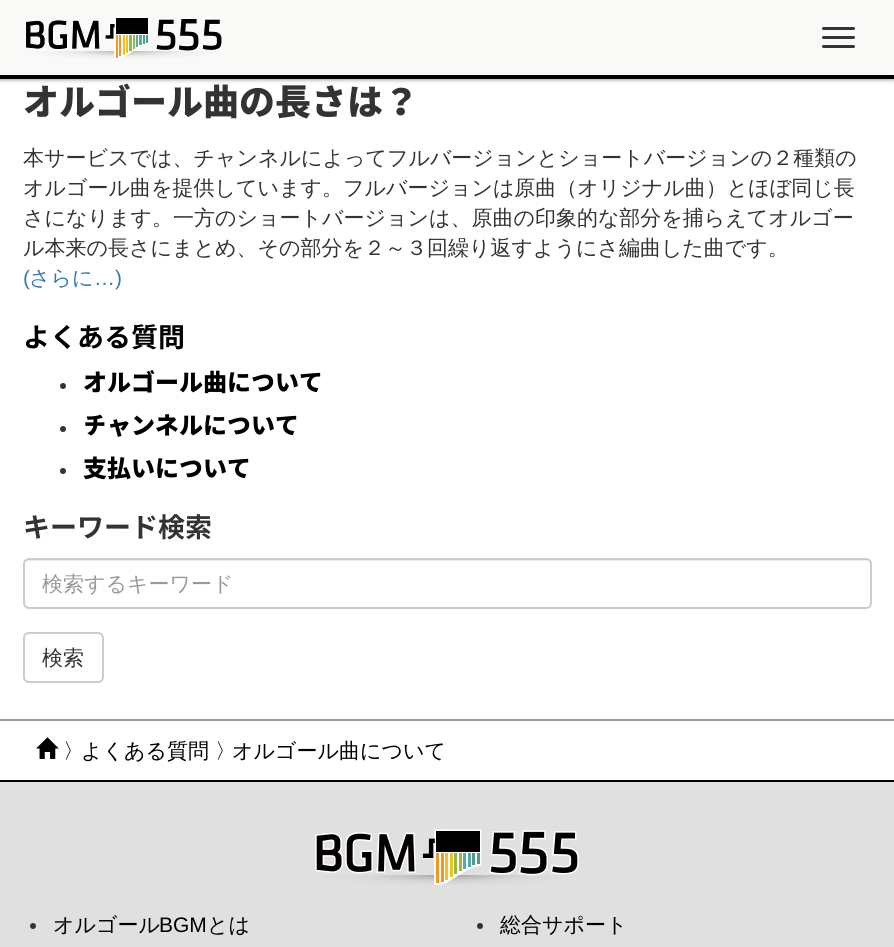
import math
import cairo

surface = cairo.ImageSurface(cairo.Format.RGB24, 894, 947)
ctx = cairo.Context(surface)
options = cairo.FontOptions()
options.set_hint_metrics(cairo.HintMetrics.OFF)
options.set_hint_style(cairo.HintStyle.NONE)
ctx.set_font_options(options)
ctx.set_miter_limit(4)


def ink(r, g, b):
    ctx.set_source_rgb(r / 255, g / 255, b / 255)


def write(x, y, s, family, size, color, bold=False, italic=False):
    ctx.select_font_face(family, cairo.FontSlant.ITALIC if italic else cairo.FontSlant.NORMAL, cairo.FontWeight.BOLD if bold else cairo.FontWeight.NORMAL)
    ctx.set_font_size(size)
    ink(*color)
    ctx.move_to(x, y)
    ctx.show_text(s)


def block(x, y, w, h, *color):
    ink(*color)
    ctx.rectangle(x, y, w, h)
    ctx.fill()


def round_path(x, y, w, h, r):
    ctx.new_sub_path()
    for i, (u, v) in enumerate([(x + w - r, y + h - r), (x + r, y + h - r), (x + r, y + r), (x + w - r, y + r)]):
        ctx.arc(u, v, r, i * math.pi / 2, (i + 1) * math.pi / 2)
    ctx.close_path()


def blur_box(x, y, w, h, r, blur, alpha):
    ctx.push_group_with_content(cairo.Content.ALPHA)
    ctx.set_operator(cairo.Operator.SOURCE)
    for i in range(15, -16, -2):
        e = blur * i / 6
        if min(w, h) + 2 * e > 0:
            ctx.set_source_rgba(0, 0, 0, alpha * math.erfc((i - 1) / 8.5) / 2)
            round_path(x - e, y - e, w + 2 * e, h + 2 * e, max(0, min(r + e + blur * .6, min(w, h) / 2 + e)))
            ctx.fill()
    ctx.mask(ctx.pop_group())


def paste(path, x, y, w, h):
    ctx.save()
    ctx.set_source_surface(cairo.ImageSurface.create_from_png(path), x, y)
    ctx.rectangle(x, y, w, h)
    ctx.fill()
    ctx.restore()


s1 = dict(family="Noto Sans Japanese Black", size=36, color=(51, 51, 51))
s2 = dict(family="WenQuanYi Zen Hei Medium", size=21, color=(51, 51, 51))
s3 = dict(family="Liberation Sans", size=21, color=(51, 122, 183))
s4 = dict(family="WenQuanYi Zen Hei Medium", size=21, color=(51, 122, 183))
s5 = dict(family="Noto Sans Japanese", size=27, color=(0, 0, 0), bold=True)
s6 = dict(family="Noto Sans Japanese Black", size=24, color=(0, 0, 0))
s7 = dict(family="Noto Sans Japanese", size=27, color=(51, 51, 51), bold=True)
s8 = dict(family="WenQuanYi Zen Hei Medium", size=21, color=(153, 153, 153))
s9 = dict(family="WenQuanYi Zen Hei Medium", size=21, color=(0, 0, 0))
s10 = dict(family="Liberation Sans", size=21, color=(0, 0, 0))

ink(255, 255, 255)
ctx.paint()
ink(75, 75, 75)
blur_box(0, 2, 894, 78, 0, 2, 0.5)
block(0, 0, 894, 75, 249, 249, 248)
block(0, 75, 894, 4, 0, 0, 0)
paste("pic1.png", 25, 17, 197, 42)
ink(51, 51, 51)
round_path(822, 27, 33, 3, 1.5)
ctx.fill()
round_path(822, 36, 33, 3, 1.5)
ctx.fill()
round_path(822, 45, 33, 3, 1.5)
ctx.fill()
block(0, 719, 894, 2, 153, 153, 153)
write(23, 115, "オルゴール曲の長さは？", **s1)
write(23, 165, "本サービスでは、チャンネルによってフルバージョンとショートバージョンの２種類の", **s2)
write(23, 195, "オルゴール曲を提供しています。フルバージョンは原曲（オリジナル曲）とほぼ同じ長", **s2)
write(23, 225, "さになります。一方のショートバージョンは、原曲の印象的な部分を捕らえてオルゴー", **s2)
write(23, 255, "ル本来の長さにまとめ、その部分を２～３回繰り返すようにさ編曲した曲です。", **s2)
write(23, 285, "(", **s3)
write(29, 285, "さらに", **s4)
write(94, 285, "…)", **s3)
write(23, 347, "よくある質問", **s5)
ink(51, 51, 51)
ctx.new_path()
ctx.arc(63, 386, 3, 0, 2 * math.pi)
ctx.fill()
write(83, 391, "オルゴール曲について", **s6)
ink(51, 51, 51)
ctx.new_path()
ctx.arc(63, 429, 3, 0, 2 * math.pi)
ctx.fill()
write(83, 434, "チャンネルについて", **s6)
ink(51, 51, 51)
ctx.new_path()
ctx.arc(63, 471, 3, 0, 2 * math.pi)
ctx.fill()
write(83, 477, "支払いについて", **s6)
write(23, 537, "キーワード検索", **s7)
ink(236, 236, 236)
ctx.new_path()
ctx.move_to(28, 561)
ctx.line_to(866, 561)
ctx.curve_to(868, 561, 870, 563, 870, 566)
ctx.line_to(870, 565)
ctx.curve_to(870, 562, 868, 560, 865, 560)
ctx.line_to(29, 560)
ctx.curve_to(26, 560, 24, 562, 24, 565)
ctx.line_to(24, 566)
ctx.curve_to(24, 563, 26, 561, 28, 561)
ctx.close_path()
ctx.fill()
round_path(24, 559, 847, 49, 5)
ink(204, 204, 204)
ctx.stroke()
write(42, 591, "検索するキーワード", **s8)
round_path(24, 633, 79, 49, 5)
ink(204, 204, 204)
ctx.stroke()
write(42, 665, "検索", **s2)
paste("pic2.png", 36, 737, 23, 22)
write(63, 758, "〉", **s9)
write(81, 758, "よくある質問", **s9)
write(215, 758, "〉", **s9)
write(232, 758, "オルゴール曲について", **s9)
block(0, 782, 894, 165, 224, 224, 224)
block(0, 780, 894, 2, 0, 0, 0)
paste("pic3.png", 315, 829, 264, 56)
ink(51, 51, 51)
ctx.arc(33, 926, 3, 0, 2 * math.pi)
ctx.fill()
write(53, 932, "オルゴール", **s9)
write(159, 932, "BGM", **s10)
write(207, 932, "とは", **s9)
ink(51, 51, 51)
ctx.new_path()
ctx.arc(480, 926, 3, 0, 2 * math.pi)
ctx.fill()
write(500, 932, "総合サポート", **s9)
surface.write_to_png("screenshot.png")
